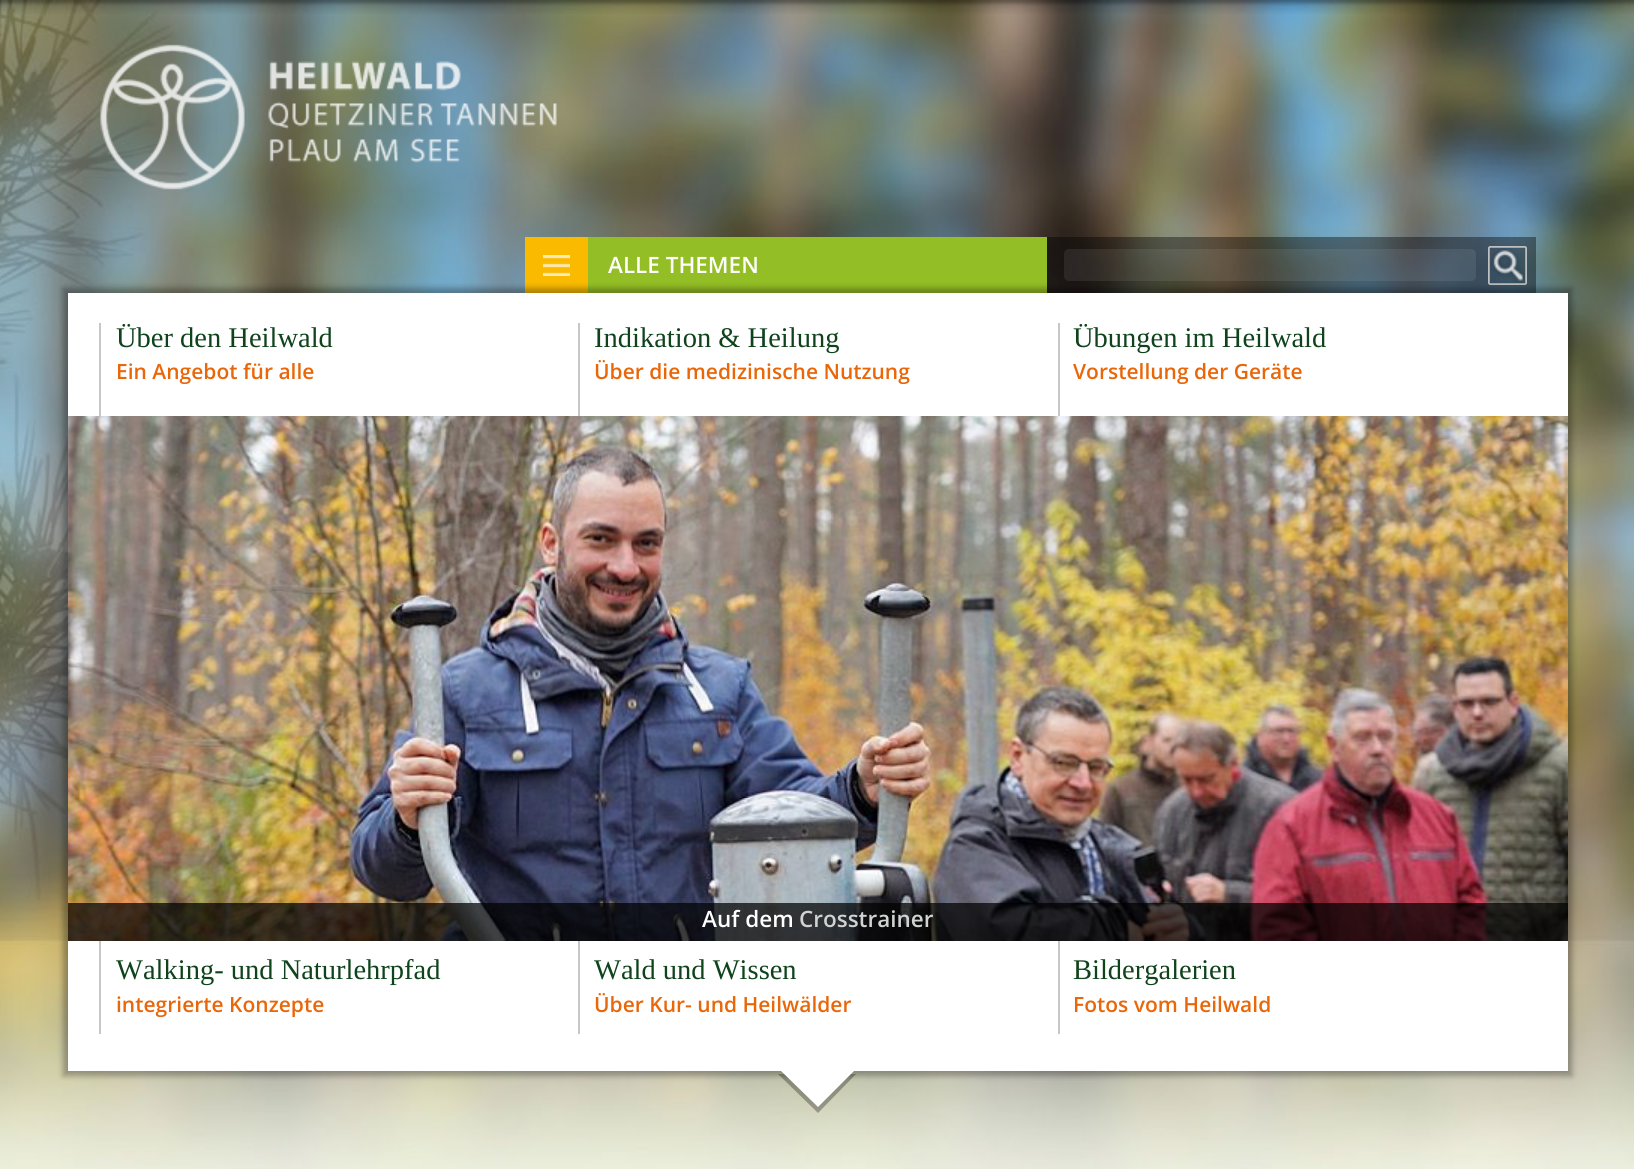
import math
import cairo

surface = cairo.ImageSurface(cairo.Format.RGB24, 1634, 1169)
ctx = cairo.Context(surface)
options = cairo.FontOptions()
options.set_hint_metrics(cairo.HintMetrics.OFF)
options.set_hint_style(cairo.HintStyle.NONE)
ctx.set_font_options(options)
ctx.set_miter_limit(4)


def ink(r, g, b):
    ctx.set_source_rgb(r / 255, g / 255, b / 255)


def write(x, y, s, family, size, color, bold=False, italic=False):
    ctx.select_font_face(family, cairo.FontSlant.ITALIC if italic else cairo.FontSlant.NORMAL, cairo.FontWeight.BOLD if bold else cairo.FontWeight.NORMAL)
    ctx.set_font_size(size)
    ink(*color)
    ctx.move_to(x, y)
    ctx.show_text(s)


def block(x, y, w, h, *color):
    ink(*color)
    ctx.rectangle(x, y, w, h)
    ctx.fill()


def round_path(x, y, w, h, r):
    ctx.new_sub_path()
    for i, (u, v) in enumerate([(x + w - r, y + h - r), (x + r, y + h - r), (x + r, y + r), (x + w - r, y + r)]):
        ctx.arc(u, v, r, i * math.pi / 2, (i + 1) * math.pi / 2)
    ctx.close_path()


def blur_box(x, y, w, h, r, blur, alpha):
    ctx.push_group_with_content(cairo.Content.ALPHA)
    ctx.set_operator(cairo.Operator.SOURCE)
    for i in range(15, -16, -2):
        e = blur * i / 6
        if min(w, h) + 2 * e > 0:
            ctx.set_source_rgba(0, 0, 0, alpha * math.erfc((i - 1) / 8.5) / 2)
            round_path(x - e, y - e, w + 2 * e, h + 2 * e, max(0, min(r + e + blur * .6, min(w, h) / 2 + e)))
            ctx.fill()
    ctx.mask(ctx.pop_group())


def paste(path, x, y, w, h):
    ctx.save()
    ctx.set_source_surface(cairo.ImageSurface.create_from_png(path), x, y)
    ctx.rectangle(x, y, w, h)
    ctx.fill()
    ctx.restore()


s1 = dict(family="Open Sans SemiBold", size=22.5, color=(255, 255, 255))
s2 = dict(family="Liberation Serif", size=28.5, color=(14, 67, 28))
s3 = dict(family="Open Sans SemiBold", size=21, color=(233, 103, 9))
s4 = dict(family="Open Sans SemiBold", size=22.5, color=(209, 210, 210))

ink(255, 255, 255)
ctx.paint()
paste("pic1.png", 0, 0, 1634, 1169)
paste("pic2.png", 100, 44, 457, 146)
block(525, 237, 63, 56, 249, 186, 0)
paste("pic3.png", 543, 255, 27, 21)
block(588, 237, 459, 56, 148, 190, 37)
write(608, 273, "ALLE THEMEN", **s1)
ctx.set_source_rgba(0, 0, 0, 0.4)
ctx.rectangle(1047, 237, 489, 56)
ctx.fill()
ctx.set_source_rgba(1, 1, 1, 0.08)
round_path(1064, 249, 412, 32, 5)
ctx.fill()
paste("pic4.png", 1488, 246, 39, 39)
paste("pic5.png", 1488, 246, 39, 39)
ink(0, 0, 0)
blur_box(63, 288, 1509, 788, 0, 3, 0.3)
block(68, 293, 1500, 778, 255, 255, 255)
block(99, 323, 2, 93, 199, 199, 199)
write(116, 347, "Über den Heilwald", **s2)
write(116, 379, "Ein Angebot für alle", **s3)
block(578, 323, 2, 93, 199, 199, 199)
write(594, 347, "Indikation & Heilung", **s2)
write(594, 379, "Über die medizinische Nutzung", **s3)
block(1058, 323, 2, 93, 199, 199, 199)
write(1073, 347, "Übungen im Heilwald", **s2)
write(1073, 379, "Vorstellung der Geräte", **s3)
paste("pic6.png", 68, 416, 1500, 525)
ctx.set_source_rgba(0, 0, 0, 0.72)
ctx.rectangle(68, 903, 1500, 38)
ctx.fill()
write(702, 927, "Auf dem", **s1)
write(799, 927, "Crosstrainer", **s4)
block(99, 941, 2, 93, 199, 199, 199)
write(116, 979, "Walking- und Naturlehrpfad", **s2)
write(116, 1012, "integrierte Konzepte", **s3)
block(578, 941, 2, 93, 199, 199, 199)
write(594, 979, "Wald und Wissen", **s2)
write(594, 1012, "Über Kur- und Heilwälder", **s3)
block(1058, 941, 2, 93, 199, 199, 199)
write(1073, 979, "Bildergalerien", **s2)
write(1073, 1012, "Fotos vom Heilwald", **s3)
ctx.set_source_rgba(0, 0, 0, 0.3)
ctx.new_path()
ctx.move_to(778, 1074)
ctx.line_to(856, 1074)
ctx.line_to(818, 1113)
ctx.close_path()
ctx.fill()
ink(255, 255, 255)
ctx.new_path()
ctx.move_to(780, 1070)
ctx.line_to(855, 1070)
ctx.line_to(818, 1107)
ctx.close_path()
ctx.fill()
surface.write_to_png("screenshot.png")
